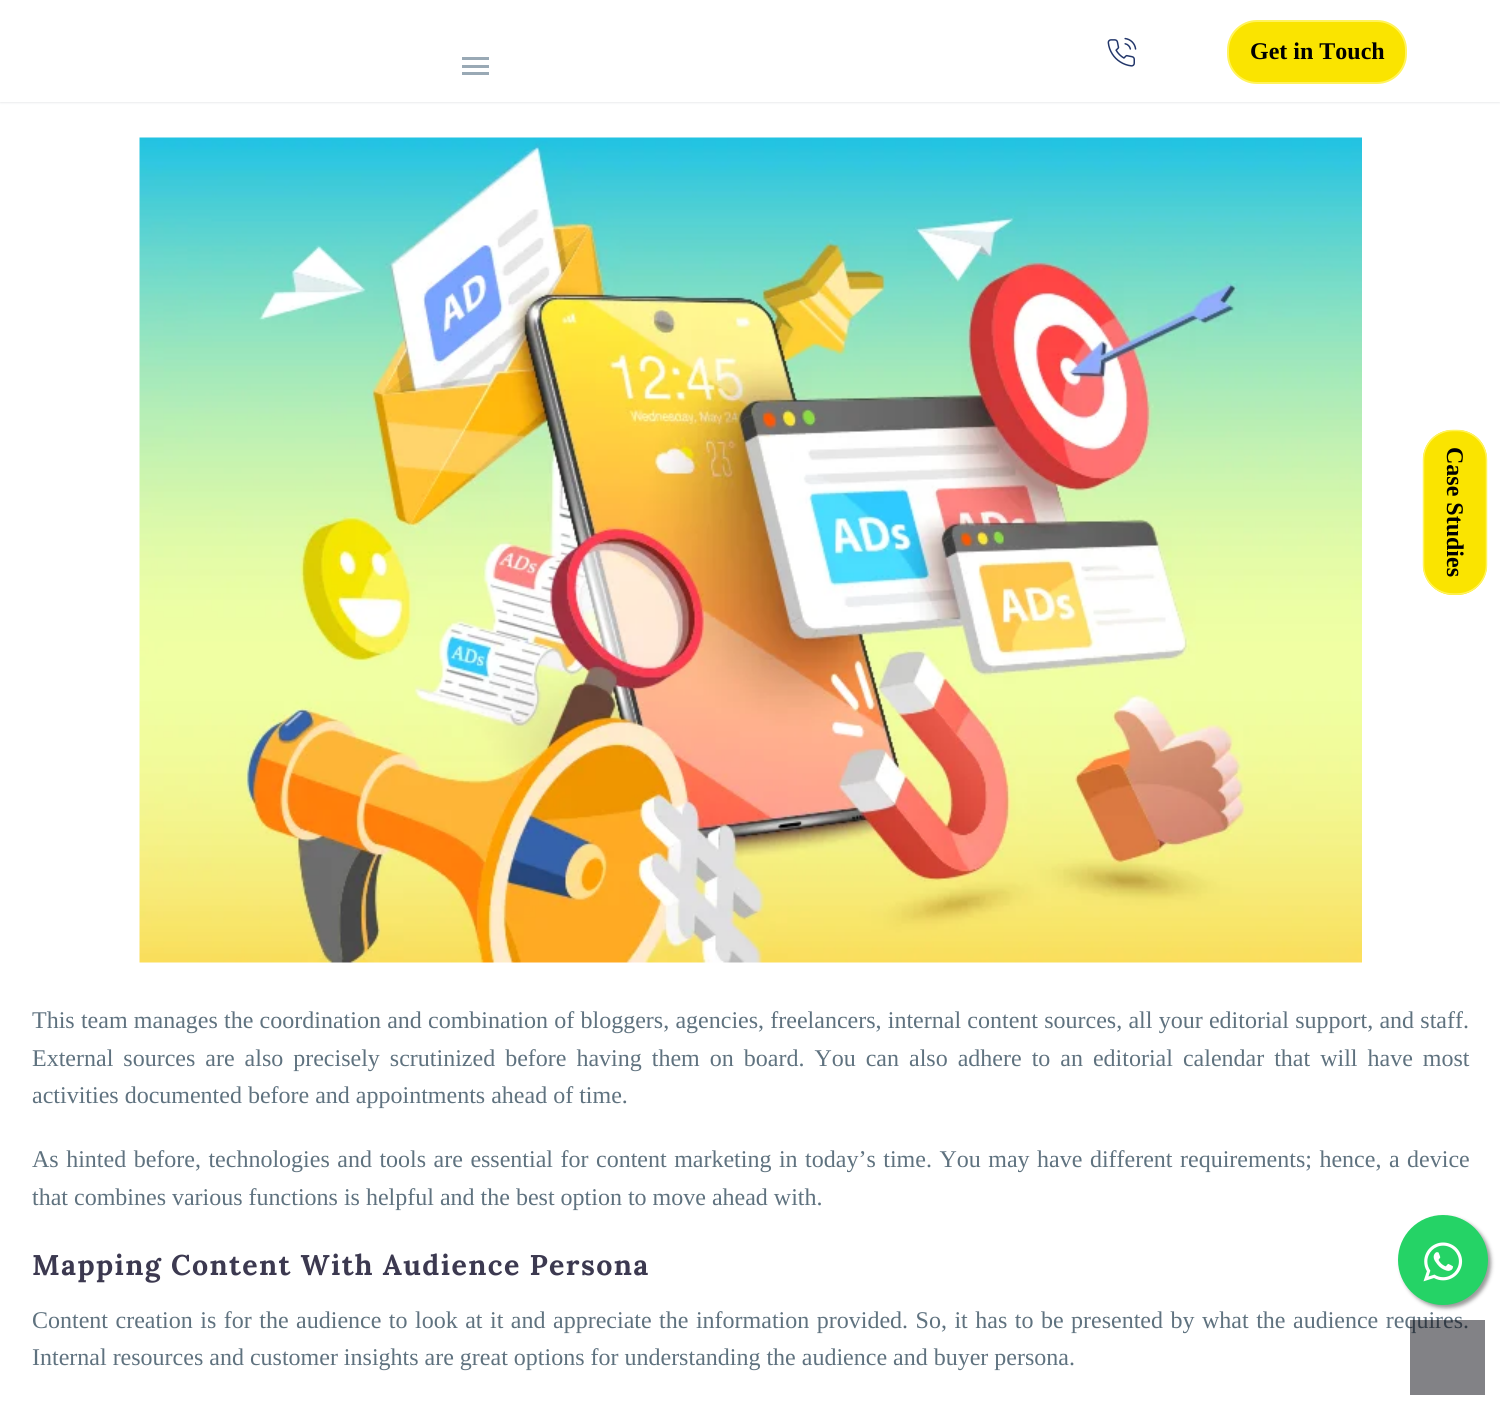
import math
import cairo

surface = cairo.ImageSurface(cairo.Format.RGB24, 1500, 1425)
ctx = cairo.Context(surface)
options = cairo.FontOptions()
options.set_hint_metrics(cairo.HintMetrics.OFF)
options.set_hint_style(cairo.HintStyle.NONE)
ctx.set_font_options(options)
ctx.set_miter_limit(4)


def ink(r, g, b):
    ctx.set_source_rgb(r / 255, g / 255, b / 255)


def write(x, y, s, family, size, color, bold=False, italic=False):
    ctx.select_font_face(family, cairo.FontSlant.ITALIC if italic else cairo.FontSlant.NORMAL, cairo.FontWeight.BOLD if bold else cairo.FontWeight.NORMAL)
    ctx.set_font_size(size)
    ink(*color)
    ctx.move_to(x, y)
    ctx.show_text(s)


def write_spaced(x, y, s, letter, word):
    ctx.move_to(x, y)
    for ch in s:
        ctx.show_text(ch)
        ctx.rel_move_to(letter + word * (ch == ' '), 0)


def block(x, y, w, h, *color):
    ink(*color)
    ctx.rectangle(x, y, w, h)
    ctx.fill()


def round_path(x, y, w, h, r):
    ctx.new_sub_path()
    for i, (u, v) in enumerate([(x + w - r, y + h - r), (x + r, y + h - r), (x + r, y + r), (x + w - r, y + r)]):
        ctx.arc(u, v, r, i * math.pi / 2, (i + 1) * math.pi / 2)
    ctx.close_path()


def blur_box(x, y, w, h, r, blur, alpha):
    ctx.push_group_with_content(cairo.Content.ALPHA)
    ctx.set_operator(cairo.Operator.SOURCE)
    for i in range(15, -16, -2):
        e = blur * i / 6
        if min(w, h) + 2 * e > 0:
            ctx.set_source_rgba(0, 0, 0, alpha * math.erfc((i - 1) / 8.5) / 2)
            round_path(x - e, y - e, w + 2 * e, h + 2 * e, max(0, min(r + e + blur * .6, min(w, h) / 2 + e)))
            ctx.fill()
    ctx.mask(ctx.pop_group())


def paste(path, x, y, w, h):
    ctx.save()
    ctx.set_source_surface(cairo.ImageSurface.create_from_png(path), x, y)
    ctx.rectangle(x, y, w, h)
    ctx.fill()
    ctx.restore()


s1 = dict(family="Liberation Serif", size=24, color=(0, 0, 0), bold=True)
s2 = dict(family="Liberation Serif", size=24, color=(95, 114, 127))

ink(255, 255, 255)
ctx.paint()
ink(56, 69, 84)
blur_box(0, 0, 1500, 102, 0, 1.5, 0.2)
block(0, 0, 1500, 102, 255, 255, 255)
block(462, 57, 27, 3, 153, 169, 181)
block(462, 65, 27, 3, 153, 169, 181)
block(462, 72, 27, 3, 153, 169, 181)
paste("pic1.png", 1107, 37, 30, 30)
ink(250, 228, 0)
round_path(1228, 21, 178, 62, 29)
ctx.fill_preserve()
ink(255, 243, 93)
ctx.stroke()
write(1250, 59, "Get in Touch", **s1)
ink(250, 228, 0)
ctx.new_path()
ctx.move_to(1487, 460)
ctx.line_to(1487, 565)
ctx.curve_to(1487, 581, 1474, 595, 1457, 595)
ctx.line_to(1453, 595)
ctx.curve_to(1436, 595, 1423, 581, 1423, 565)
ctx.line_to(1423, 460)
ctx.curve_to(1423, 443, 1436, 430, 1453, 430)
ctx.line_to(1457, 430)
ctx.curve_to(1474, 430, 1487, 443, 1487, 460)
ctx.close_path()
ctx.fill()
ctx.new_path()
ctx.move_to(1486.5, 460)
ctx.line_to(1486.5, 565)
ctx.curve_to(1486.5, 581, 1473.5, 594, 1457, 594)
ctx.line_to(1453, 594)
ctx.curve_to(1436.5, 594, 1423.5, 581, 1423.5, 565)
ctx.line_to(1423.5, 460)
ctx.curve_to(1423.5, 443.5, 1436.5, 430.5, 1453, 430.5)
ctx.line_to(1457, 430.5)
ctx.curve_to(1473.5, 430.5, 1486.5, 443.5, 1486.5, 460)
ctx.close_path()
ink(255, 243, 93)
ctx.set_line_width(1.5)
ctx.stroke()
ctx.save()
ctx.translate(1447, 447)
ctx.rotate(90 * math.pi / 180)
write(0, 0, "Case Studies", **s1)
ctx.restore()
paste("pic2.png", 139, 137, 1223, 826)
ctx.select_font_face("Liberation Serif")
ctx.set_font_size(24)
ink(95, 114, 127)
write_spaced(32, 1028, "This team manages the coordination and combination of bloggers, agencies, freelancers, internal content sources, all your editorial support, and staff.", 0, 0.25)
write_spaced(32, 1066, "External sources are also precisely scrutinized before having them on board. You can also adhere to an editorial calendar that will have most", 0, 4)
write(32, 1103, "activities documented before and appointments ahead of time.", **s2)
write_spaced(32, 1167, "As hinted before, technologies and tools are essential for content marketing in today’s time. You may have different requirements; hence, a device", 0, 1.5)
write(32, 1205, "that combines various functions is helpful and the best option to move ahead with.", **s2)
ctx.select_font_face("Lora", cairo.FontSlant.NORMAL, cairo.FontWeight.BOLD)
ctx.set_font_size(28.5)
ink(60, 57, 80)
write_spaced(32, 1275, "Mapping Content With Audience Persona", 1.4, 0)
ctx.select_font_face("Liberation Serif")
ctx.set_font_size(24)
ink(95, 114, 127)
write_spaced(32, 1328, "Content creation is for the audience to look at it and appreciate the information provided. So, it has to be presented by what the audience requires.", 0, 1.5)
write(32, 1365, "Internal resources and customer insights are great options for understanding the audience and buyer persona.", **s2)
ctx.set_source_rgba(0.024, 0.024, 0.059, 0.5)
ctx.rectangle(1410, 1320, 75, 75)
ctx.fill()
ink(153, 153, 153)
blur_box(1401, 1218, 90, 90, 45, 2, 1)
ink(37, 211, 102)
ctx.arc(1443, 1260, 45, 0, 2 * math.pi)
ctx.fill()
paste("pic3.png", 1423, 1242, 40, 40)
surface.write_to_png("screenshot.png")
